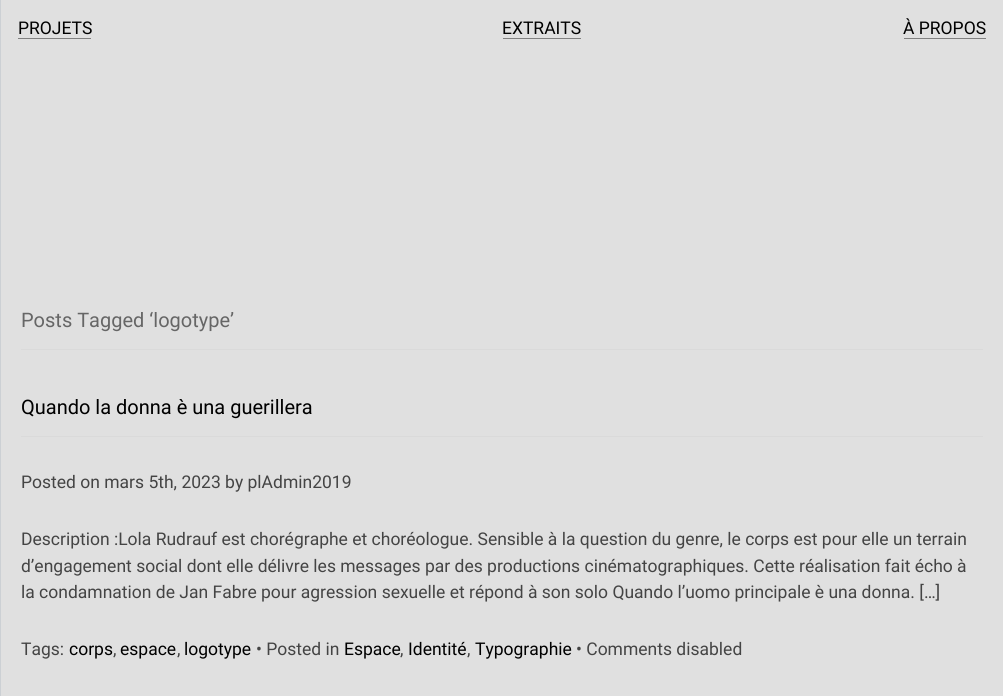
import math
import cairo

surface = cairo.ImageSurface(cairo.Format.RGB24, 1003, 696)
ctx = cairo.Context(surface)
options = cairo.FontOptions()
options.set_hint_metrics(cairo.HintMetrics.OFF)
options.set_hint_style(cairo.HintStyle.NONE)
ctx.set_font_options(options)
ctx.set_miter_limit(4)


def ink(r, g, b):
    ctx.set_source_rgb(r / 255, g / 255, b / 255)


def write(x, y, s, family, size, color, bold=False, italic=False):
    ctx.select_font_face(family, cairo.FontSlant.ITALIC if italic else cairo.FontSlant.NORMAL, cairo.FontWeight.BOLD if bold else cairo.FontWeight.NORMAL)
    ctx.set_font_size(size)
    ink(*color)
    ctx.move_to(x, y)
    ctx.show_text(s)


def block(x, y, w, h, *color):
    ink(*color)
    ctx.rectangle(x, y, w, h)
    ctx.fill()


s1 = dict(family="Roboto", size=17.5, color=(0, 0, 0))
s2 = dict(family="Roboto", size=20, color=(102, 102, 102))
s3 = dict(family="Roboto", size=20, color=(0, 0, 0))
s4 = dict(family="Roboto", size=17.5, color=(68, 68, 68))

ink(224, 224, 224)
ctx.paint()
ctx.rectangle(0.5, -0.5, 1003, 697)
ink(204, 208, 212)
ctx.set_line_width(1)
ctx.stroke()
write(18, 34, "PROJETS", **s1)
block(18, 38, 73, 1, 128, 128, 128)
write(502, 34, "EXTRAITS", **s1)
block(503, 38, 78, 1, 128, 128, 128)
write(903, 34, "À PROPOS", **s1)
block(904, 38, 82, 1, 128, 128, 128)
block(21, 349, 962, 1, 218, 218, 218)
write(21, 327, "Posts Tagged ‘logotype’", **s2)
block(21, 436, 962, 1, 218, 218, 218)
write(21, 414, "Quando la donna è una guerillera", **s3)
write(21, 488, "Posted on mars 5th, 2023 by plAdmin2019", **s4)
write(21, 545, "Description :Lola Rudrauf est chorégraphe et choréologue. Sensible à la question du genre, le corps est pour elle un terrain", **s4)
write(21, 572, "d’engagement social dont elle délivre les messages par des productions cinématographiques. Cette réalisation fait écho à", **s4)
write(21, 598, "la condamnation de Jan Fabre pour agression sexuelle et répond à son solo Quando l’uomo principale è una donna. […]", **s4)
write(21, 655, "Tags:", **s4)
write(69, 655, "corps", **s1)
write(113, 655, ",", **s4)
write(120, 655, "espace", **s1)
write(177, 655, ",", **s4)
write(184, 655, "logotype", **s1)
write(256, 655, "• Posted in", **s4)
write(344, 655, "Espace", **s1)
write(400, 655, ",", **s4)
write(408, 655, "Identité", **s1)
write(467, 655, ",", **s4)
write(475, 655, "Typographie", **s1)
write(576, 655, "• Comments disabled", **s4)
surface.write_to_png("screenshot.png")
